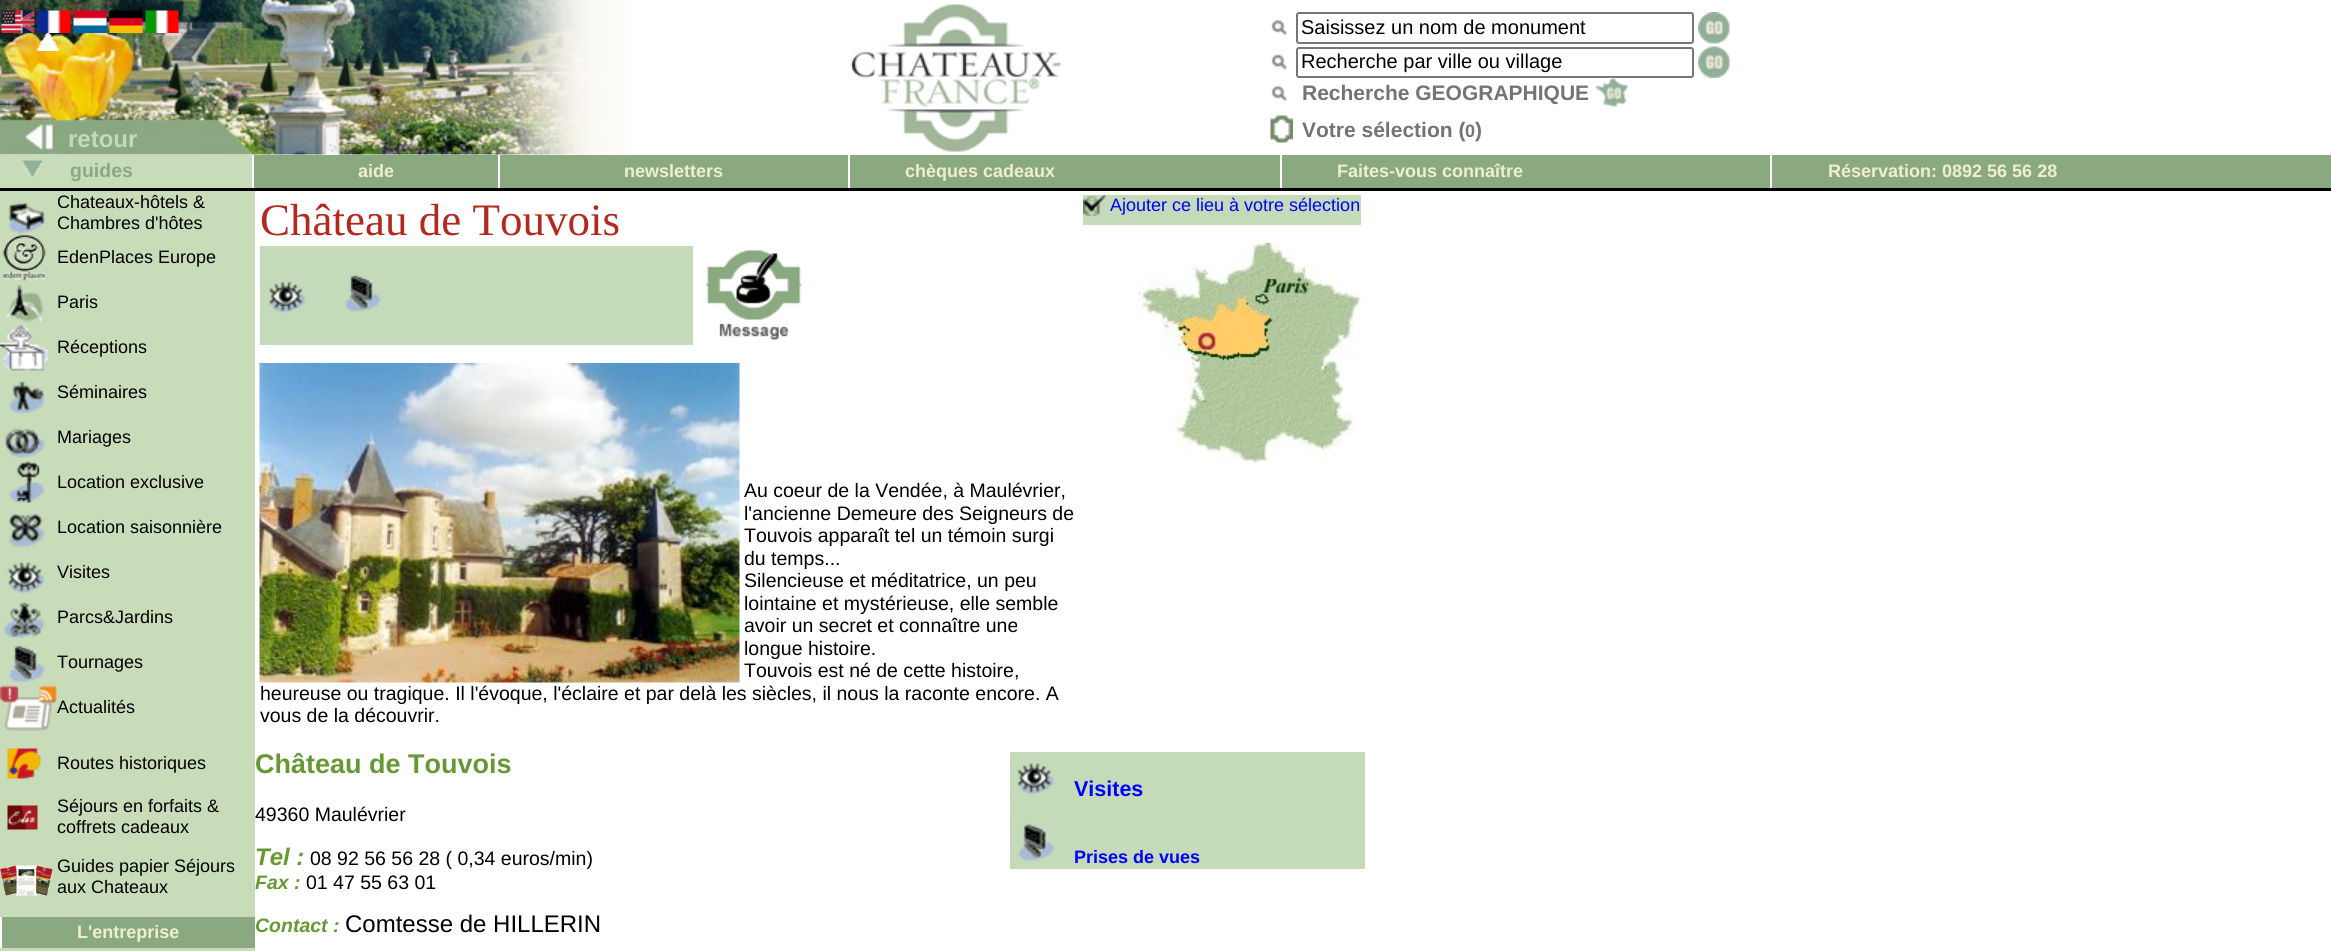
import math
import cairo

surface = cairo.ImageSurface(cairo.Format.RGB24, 2331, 951)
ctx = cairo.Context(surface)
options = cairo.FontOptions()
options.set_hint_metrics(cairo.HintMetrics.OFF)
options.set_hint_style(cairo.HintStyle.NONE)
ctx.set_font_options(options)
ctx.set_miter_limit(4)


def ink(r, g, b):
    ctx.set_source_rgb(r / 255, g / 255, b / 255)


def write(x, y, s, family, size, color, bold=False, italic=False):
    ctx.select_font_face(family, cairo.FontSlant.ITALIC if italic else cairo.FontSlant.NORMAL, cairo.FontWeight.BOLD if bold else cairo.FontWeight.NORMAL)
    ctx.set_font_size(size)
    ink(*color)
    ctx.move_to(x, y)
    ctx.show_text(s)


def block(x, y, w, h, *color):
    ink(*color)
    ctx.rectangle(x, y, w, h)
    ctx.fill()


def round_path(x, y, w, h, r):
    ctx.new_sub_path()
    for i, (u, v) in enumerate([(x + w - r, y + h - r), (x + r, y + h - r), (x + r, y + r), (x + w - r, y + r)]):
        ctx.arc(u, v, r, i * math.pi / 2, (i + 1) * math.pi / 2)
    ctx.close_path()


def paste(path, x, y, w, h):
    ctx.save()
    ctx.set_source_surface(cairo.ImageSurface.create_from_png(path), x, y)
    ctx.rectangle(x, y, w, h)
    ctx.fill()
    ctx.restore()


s1 = dict(family="Liberation Sans", size=24, color=(197, 218, 184), bold=True)
s2 = dict(family="Liberation Sans", size=20, color=(0, 0, 0))
s3 = dict(family="Liberation Sans", size=21, color=(115, 116, 119), bold=True)
s4 = dict(family="Liberation Sans", size=18, color=(115, 116, 119), bold=True)
s5 = dict(family="Liberation Sans", size=19.5, color=(139, 169, 129), bold=True)
s6 = dict(family="Liberation Sans", size=18, color=(239, 239, 208), bold=True)
s7 = dict(family="Liberation Sans", size=18, color=(0, 0, 0))
s8 = dict(family="Liberation Serif", size=45, color=(179, 41, 30))
s9 = dict(family="Liberation Sans", size=19.5, color=(0, 0, 0))
s10 = dict(family="Liberation Sans", size=18, color=(0, 0, 255))
s11 = dict(family="Liberation Sans", size=27, color=(102, 153, 51), bold=True)
s12 = dict(family="Liberation Sans", size=24, color=(102, 153, 51), bold=True, italic=True)
s13 = dict(family="Liberation Sans", size=19.5, color=(102, 153, 51), bold=True, italic=True)
s14 = dict(family="Liberation Sans", size=24, color=(0, 0, 0))
s15 = dict(family="Liberation Sans", size=21.5, color=(0, 0, 255), bold=True)
s16 = dict(family="Liberation Sans", size=18, color=(0, 0, 255), bold=True)

ink(255, 255, 255)
ctx.paint()
paste("pic1.png", 0, 0, 631, 155)
paste("pic2.png", 1, 10, 34, 23)
paste("pic3.png", 37, 10, 34, 23)
paste("pic4.png", 37, 33, 22, 18)
paste("pic5.png", 73, 10, 34, 23)
paste("pic6.png", 109, 10, 34, 23)
paste("pic7.png", 145, 10, 34, 23)
write(68, 147, "retour", **s1)
paste("pic8.png", 851, 4, 210, 148)
paste("pic9.png", 1271, 19, 16, 17)
round_path(1297, 13, 396, 30, 2)
ink(118, 118, 118)
ctx.stroke()
write(1301, 34, "Saisissez un nom de monument", **s2)
paste("pic10.png", 1698, 12, 32, 32)
paste("pic11.png", 1271, 53, 16, 18)
round_path(1297, 48, 396, 29, 2)
ink(118, 118, 118)
ctx.stroke()
write(1301, 68, "Recherche par ville ou village", **s2)
paste("pic12.png", 1698, 46, 32, 32)
paste("pic9.png", 1271, 85, 16, 17)
write(1302, 100, "Recherche GEOGRAPHIQUE", **s3)
paste("pic13.png", 1595, 77, 33, 30)
paste("pic14.png", 1270, 115, 23, 28)
write(1302, 137, "Votre sélection (", **s3)
write(1465, 137, "0", **s4)
write(1475, 137, ")", **s3)
block(0, 155, 252, 33, 201, 220, 186)
paste("pic15.png", 22, 160, 20, 17)
write(70, 177, "guides", **s5)
block(254, 155, 244, 33, 139, 169, 129)
write(358, 177, "aide", **s6)
block(500, 155, 348, 33, 139, 169, 129)
write(624, 177, "newsletters", **s6)
block(850, 155, 430, 33, 139, 169, 129)
write(905, 177, "chèques cadeaux", **s6)
block(1282, 155, 488, 33, 139, 169, 129)
write(1337, 177, "Faites-vous connaître", **s6)
block(1772, 155, 559, 33, 139, 169, 129)
write(1828, 177, "Réservation: 0892 56 56 28", **s6)
block(0, 188, 2331, 3, 0, 0, 0)
block(0, 191, 255, 760, 201, 220, 186)
paste("pic16.png", 8, 202, 38, 32)
write(57, 208, "Chateaux-hôtels &", **s7)
write(57, 229, "Chambres d'hôtes", **s7)
paste("pic17.png", 2, 235, 44, 46)
write(57, 263, "EdenPlaces Europe", **s7)
paste("pic18.png", 5, 284, 40, 39)
write(57, 308, "Paris", **s7)
paste("pic19.png", 0, 325, 49, 46)
write(57, 353, "Réceptions", **s7)
paste("pic20.png", 9, 381, 36, 33)
write(57, 398, "Séminaires", **s7)
paste("pic21.png", 4, 428, 41, 31)
write(57, 443, "Mariages", **s7)
paste("pic22.png", 9, 461, 36, 42)
write(57, 488, "Location exclusive", **s7)
paste("pic23.png", 8, 514, 37, 34)
write(57, 533, "Location saisonnière", **s7)
paste("pic24.png", 7, 562, 38, 32)
write(57, 578, "Visites", **s7)
paste("pic25.png", 4, 602, 41, 36)
write(57, 623, "Parcs&Jardins", **s7)
paste("pic26.png", 9, 645, 36, 38)
write(57, 668, "Tournages", **s7)
paste("pic27.png", 0, 685, 57, 46)
write(57, 713, "Actualités", **s7)
paste("pic28.png", 7, 748, 34, 31)
write(57, 769, "Routes historiques", **s7)
paste("pic29.png", 7, 805, 31, 25)
write(57, 812, "Séjours en forfaits &", **s7)
write(57, 833, "coffrets cadeaux", **s7)
paste("pic30.png", 0, 865, 53, 31)
write(57, 872, "Guides papier Séjours", **s7)
write(57, 893, "aux Chateaux", **s7)
block(2, 917, 253, 31, 139, 169, 129)
block(0, 917, 2, 31, 255, 255, 255)
write(77, 938, "L'entreprise", **s6)
write(260, 235, "Château de Touvois", **s8)
block(260, 246, 433, 99, 197, 218, 184)
paste("pic31.png", 268, 281, 38, 33)
paste("pic32.png", 345, 274, 36, 38)
paste("pic33.png", 706, 250, 96, 91)
paste("pic34.png", 259, 363, 481, 320)
write(744, 497, "Au coeur de la Vendée, à Maulévrier,", **s9)
write(744, 520, "l'ancienne Demeure des Seigneurs de", **s9)
write(744, 542, "Touvois apparaît tel un témoin surgi", **s9)
write(744, 565, "du temps...", **s9)
write(744, 587, "Silencieuse et méditatrice, un peu", **s9)
write(744, 610, "lointaine et mystérieuse, elle semble", **s9)
write(744, 632, "avoir un secret et connaître une", **s9)
write(744, 655, "longue histoire.", **s9)
write(744, 677, "Touvois est né de cette histoire,", **s9)
write(260, 700, "heureuse ou tragique. Il l'évoque, l'éclaire et par delà les siècles, il nous la raconte encore. A", **s9)
write(260, 722, "vous de la découvrir.", **s9)
block(1083, 195, 278, 30, 197, 218, 185)
paste("pic35.png", 1083, 195, 23, 21)
write(1110, 211, "Ajouter ce lieu à votre sélection", **s10)
paste("pic36.png", 1138, 243, 223, 222)
write(255, 773, "Château de Touvois", **s11)
write(255, 821, "49360 Maulévrier", **s9)
write(255, 865, "Tel :", **s12)
write(310, 865, "08 92 56 56 28 ( 0,34 euros/min)", **s9)
write(255, 889, "Fax :", **s13)
write(306, 889, "01 47 55 63 01", **s9)
write(255, 932, "Contact :", **s13)
write(345, 932, "Comtesse de HILLERIN", **s14)
block(1010, 752, 355, 117, 197, 218, 184)
paste("pic37.png", 1017, 763, 38, 32)
write(1074, 796, "Visites", **s15)
paste("pic38.png", 1018, 823, 37, 38)
write(1074, 863, "Prises de vues", **s16)
surface.write_to_png("screenshot.png")
